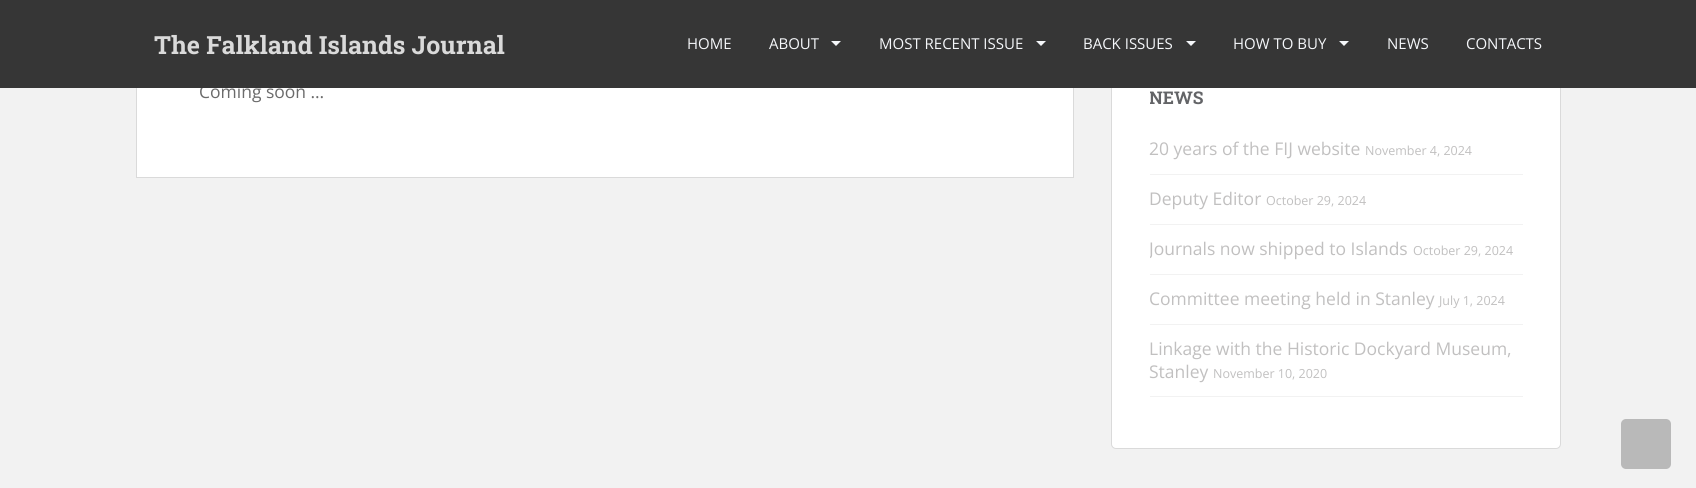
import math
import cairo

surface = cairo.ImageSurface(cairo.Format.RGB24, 1696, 488)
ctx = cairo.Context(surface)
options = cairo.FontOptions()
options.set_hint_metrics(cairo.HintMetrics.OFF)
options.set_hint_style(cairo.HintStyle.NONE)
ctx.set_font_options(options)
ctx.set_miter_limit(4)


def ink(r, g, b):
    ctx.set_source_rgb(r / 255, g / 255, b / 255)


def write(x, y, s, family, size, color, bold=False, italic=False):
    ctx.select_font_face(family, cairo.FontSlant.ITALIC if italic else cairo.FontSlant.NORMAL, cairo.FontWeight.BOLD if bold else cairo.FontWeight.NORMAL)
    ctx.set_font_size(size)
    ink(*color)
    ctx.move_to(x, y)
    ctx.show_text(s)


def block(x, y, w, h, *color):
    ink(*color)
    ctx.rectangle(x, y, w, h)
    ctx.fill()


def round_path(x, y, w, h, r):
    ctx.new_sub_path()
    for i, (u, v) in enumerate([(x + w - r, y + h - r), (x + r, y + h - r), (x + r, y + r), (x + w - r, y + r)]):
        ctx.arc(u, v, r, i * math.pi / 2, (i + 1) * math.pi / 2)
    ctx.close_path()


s1 = dict(family="Open Sans", size=17.5, color=(107, 107, 107))
s2 = dict(family="Roboto Slab", size=25, color=(218, 218, 218), bold=True)
s3 = dict(family="Open Sans", size=15, color=(245, 247, 250))
s4 = dict(family="Roboto Slab", size=17.5, color=(99, 100, 103), bold=True)
s5 = dict(family="Open Sans", size=17.5, color=(193, 192, 192))
s6 = dict(family="Open Sans", size=12.5, color=(193, 192, 192))

ink(242, 242, 242)
ctx.paint()
block(137, 88, 936, 89, 255, 255, 255)
ctx.rectangle(136.5, -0.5, 937, 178)
ink(218, 218, 218)
ctx.set_line_width(1)
ctx.stroke()
write(199, 98, "Coming soon …", **s1)
ink(255, 255, 255)
round_path(1111.5, -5.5, 449, 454, 4.5)
ctx.fill_preserve()
ink(218, 218, 218)
ctx.stroke()
block(0, 0, 1696, 88, 54, 54, 54)
write(154, 54, "The Falkland Islands Journal", **s2)
write(687, 49, "HOME", **s3)
write(769, 49, "ABOUT", **s3)
ctx.new_path()
ctx.move_to(831, 41)
ctx.line_to(841, 41)
ctx.line_to(836, 46)
ctx.close_path()
ctx.fill()
write(879, 49, "MOST RECENT ISSUE", **s3)
ctx.new_path()
ctx.move_to(1036, 41)
ctx.line_to(1046, 41)
ctx.line_to(1041, 46)
ctx.close_path()
ctx.fill()
write(1083, 49, "BACK ISSUES", **s3)
ctx.new_path()
ctx.move_to(1186, 41)
ctx.line_to(1196, 41)
ctx.line_to(1191, 46)
ctx.close_path()
ctx.fill()
write(1233, 49, "HOW TO BUY", **s3)
ctx.new_path()
ctx.move_to(1339, 41)
ctx.line_to(1349, 41)
ctx.line_to(1344, 46)
ctx.close_path()
ctx.fill()
write(1387, 49, "NEWS", **s3)
write(1466, 49, "CONTACTS", **s3)
ctx.save()
ctx.rectangle(1150, 88, 373, 322)
ctx.clip()
write(1149, 104, "NEWS", **s4)
ctx.restore()
block(1150, 174, 373, 1, 242, 242, 242)
write(1149, 155, "20 years of the FIJ website", **s5)
write(1365, 155, "November 4, 2024", **s6)
block(1150, 224, 373, 1, 242, 242, 242)
write(1149, 205, "Deputy Editor", **s5)
write(1266, 205, "October 29, 2024", **s6)
block(1150, 274, 373, 1, 242, 242, 242)
ctx.save()
ctx.rectangle(1150, 88, 373, 322)
ctx.clip()
write(1149, 255, "Journals now shipped to Islands", **s5)
ctx.restore()
write(1413, 255, "October 29, 2024", **s6)
block(1150, 324, 373, 1, 242, 242, 242)
write(1149, 305, "Committee meeting held in Stanley", **s5)
write(1439, 305, "July 1, 2024", **s6)
block(1150, 396, 373, 1, 242, 242, 242)
write(1149, 355, "Linkage with the Historic Dockyard Museum,", **s5)
write(1149, 378, "Stanley", **s5)
write(1213, 378, "November 10, 2020", **s6)
ink(185, 185, 185)
round_path(1621, 419, 50, 50, 5)
ctx.fill()
surface.write_to_png("screenshot.png")
